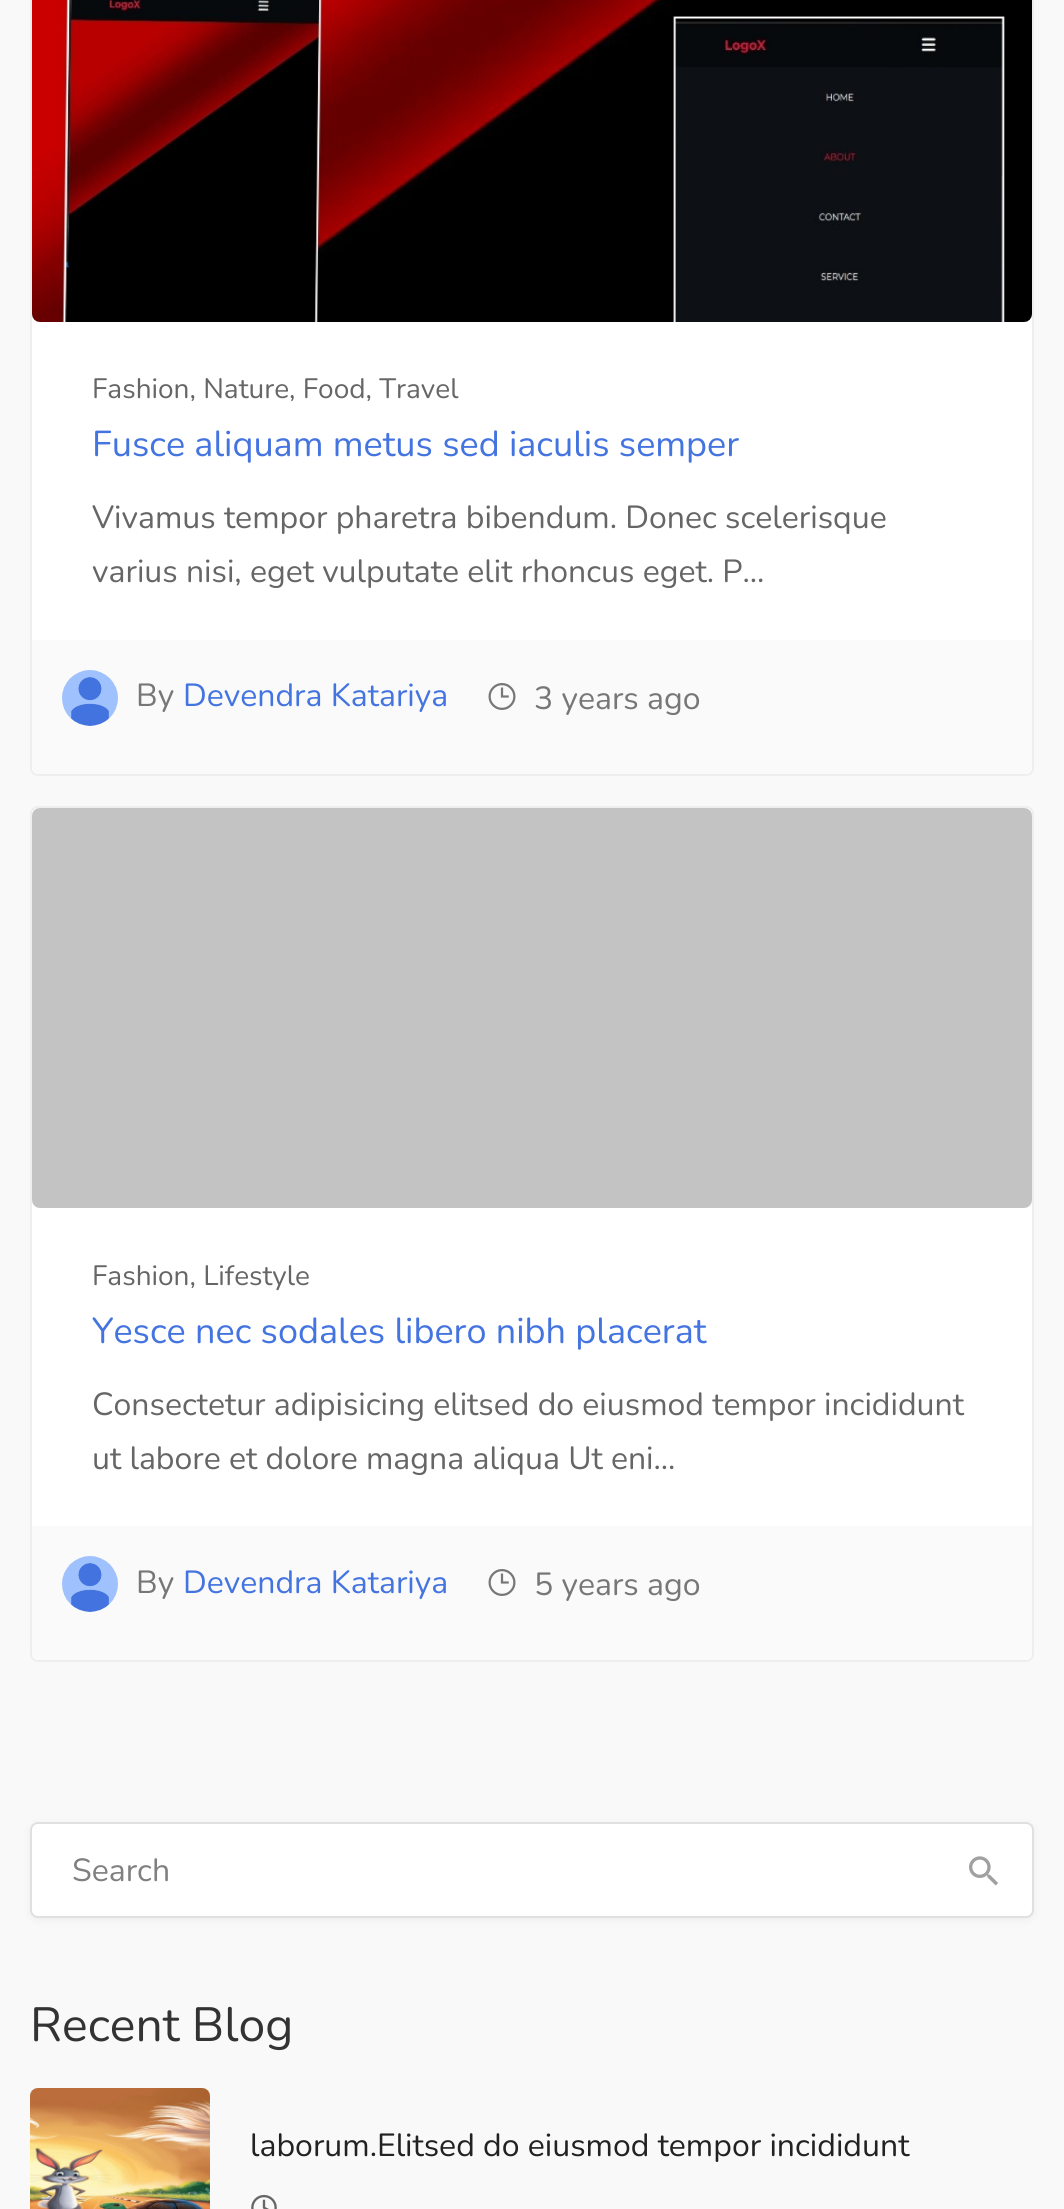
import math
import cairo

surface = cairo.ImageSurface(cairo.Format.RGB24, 1064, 2209)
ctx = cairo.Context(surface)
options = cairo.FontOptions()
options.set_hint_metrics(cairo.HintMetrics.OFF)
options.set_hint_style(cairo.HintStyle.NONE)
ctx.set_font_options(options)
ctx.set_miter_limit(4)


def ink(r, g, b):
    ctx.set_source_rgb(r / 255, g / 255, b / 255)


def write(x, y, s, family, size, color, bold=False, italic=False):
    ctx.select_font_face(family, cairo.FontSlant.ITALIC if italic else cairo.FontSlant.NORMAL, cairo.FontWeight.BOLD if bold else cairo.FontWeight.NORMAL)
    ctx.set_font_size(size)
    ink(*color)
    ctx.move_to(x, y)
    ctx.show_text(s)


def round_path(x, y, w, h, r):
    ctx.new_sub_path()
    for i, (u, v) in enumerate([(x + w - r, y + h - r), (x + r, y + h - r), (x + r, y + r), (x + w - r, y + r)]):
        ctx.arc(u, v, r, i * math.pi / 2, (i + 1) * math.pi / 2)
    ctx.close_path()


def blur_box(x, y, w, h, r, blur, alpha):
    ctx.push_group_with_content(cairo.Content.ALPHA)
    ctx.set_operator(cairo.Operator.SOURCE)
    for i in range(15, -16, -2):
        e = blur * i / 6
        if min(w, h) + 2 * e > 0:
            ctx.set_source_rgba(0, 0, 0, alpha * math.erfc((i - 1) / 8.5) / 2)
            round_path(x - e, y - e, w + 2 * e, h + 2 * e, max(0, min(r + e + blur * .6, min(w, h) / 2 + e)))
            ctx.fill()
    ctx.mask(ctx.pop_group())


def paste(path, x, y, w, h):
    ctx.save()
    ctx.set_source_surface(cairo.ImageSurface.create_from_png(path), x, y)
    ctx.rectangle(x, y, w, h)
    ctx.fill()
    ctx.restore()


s1 = dict(family="Nunito", size=28, color=(102, 102, 102))
s2 = dict(family="Nunito", size=36, color=(68, 116, 224))
s3 = dict(family="Nunito", size=32, color=(102, 102, 102))
s4 = dict(family="Nunito", size=32, color=(119, 119, 119))
s5 = dict(family="Nunito", size=32, color=(68, 116, 224))
s6 = dict(family="Nunito", size=32, color=(128, 128, 128))
s7 = dict(family="Nunito", size=48, color=(51, 51, 51))
s8 = dict(family="Nunito", size=32, color=(34, 34, 34))

ink(249, 249, 249)
ctx.paint()
ink(255, 255, 255)
round_path(31, -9, 1002, 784, 7)
ctx.fill_preserve()
ink(238, 238, 238)
ctx.stroke()
paste("pic1.png", 32, 0, 1000, 322)
write(92, 398, "Fashion, Nature, Food, Travel", **s1)
write(92, 456, "Fusce aliquam metus sed iaculis semper", **s2)
write(92, 528, "Vivamus tempor pharetra bibendum. Donec scelerisque", **s3)
write(92, 582, "varius nisi, eget vulputate elit rhoncus eget. P...", **s3)
ink(250, 250, 250)
ctx.new_path()
ctx.move_to(32, 640)
ctx.line_to(1032, 640)
ctx.line_to(1032, 766)
ctx.curve_to(1032, 770.5, 1028.5, 774, 1024, 774)
ctx.line_to(40, 774)
ctx.curve_to(35.5, 774, 32, 770.5, 32, 766)
ctx.close_path()
ctx.fill()
paste("pic2.png", 62, 670, 56, 56)
write(136, 706, "By", **s4)
write(183, 706, "Devendra Katariya", **s5)
paste("pic3.png", 488, 683, 28, 27)
write(534, 709, "3 years ago", **s4)
ink(255, 255, 255)
round_path(31, 807, 1002, 854, 7)
ctx.fill_preserve()
ink(238, 238, 238)
ctx.stroke()
paste("pic4.png", 32, 808, 1000, 400)
write(92, 1285, "Fashion, Lifestyle", **s1)
write(92, 1343, "Yesce nec sodales libero nibh placerat", **s2)
write(92, 1415, "Consectetur adipisicing elitsed do eiusmod tempor incididunt", **s3)
write(92, 1469, "ut labore et dolore magna aliqua Ut eni...", **s3)
ink(250, 250, 250)
ctx.new_path()
ctx.move_to(32, 1526)
ctx.line_to(1032, 1526)
ctx.line_to(1032, 1652)
ctx.curve_to(1032, 1656.5, 1028.5, 1660, 1024, 1660)
ctx.line_to(40, 1660)
ctx.curve_to(35.5, 1660, 32, 1656.5, 32, 1652)
ctx.close_path()
ctx.fill()
paste("pic2.png", 62, 1556, 56, 56)
write(136, 1593, "By", **s4)
write(183, 1593, "Devendra Katariya", **s5)
paste("pic3.png", 488, 1569, 28, 27)
write(534, 1595, "5 years ago", **s4)
ink(0, 0, 0)
blur_box(30, 1824, 1004, 96, 8, 4, 0.05)
ink(255, 255, 255)
round_path(31, 1823, 1002, 94, 7)
ctx.fill_preserve()
ink(224, 224, 224)
ctx.stroke()
write(72, 1881, "Search", **s6)
paste("pic5.png", 969, 1856, 29, 30)
write(30, 2041, "Recent Blog", **s7)
paste("pic6.png", 30, 2088, 180, 121)
write(250, 2156, "laborum.Elitsed do eiusmod tempor incididunt", **s8)
paste("pic7.png", 251, 2194, 26, 15)
surface.write_to_png("screenshot.png")
